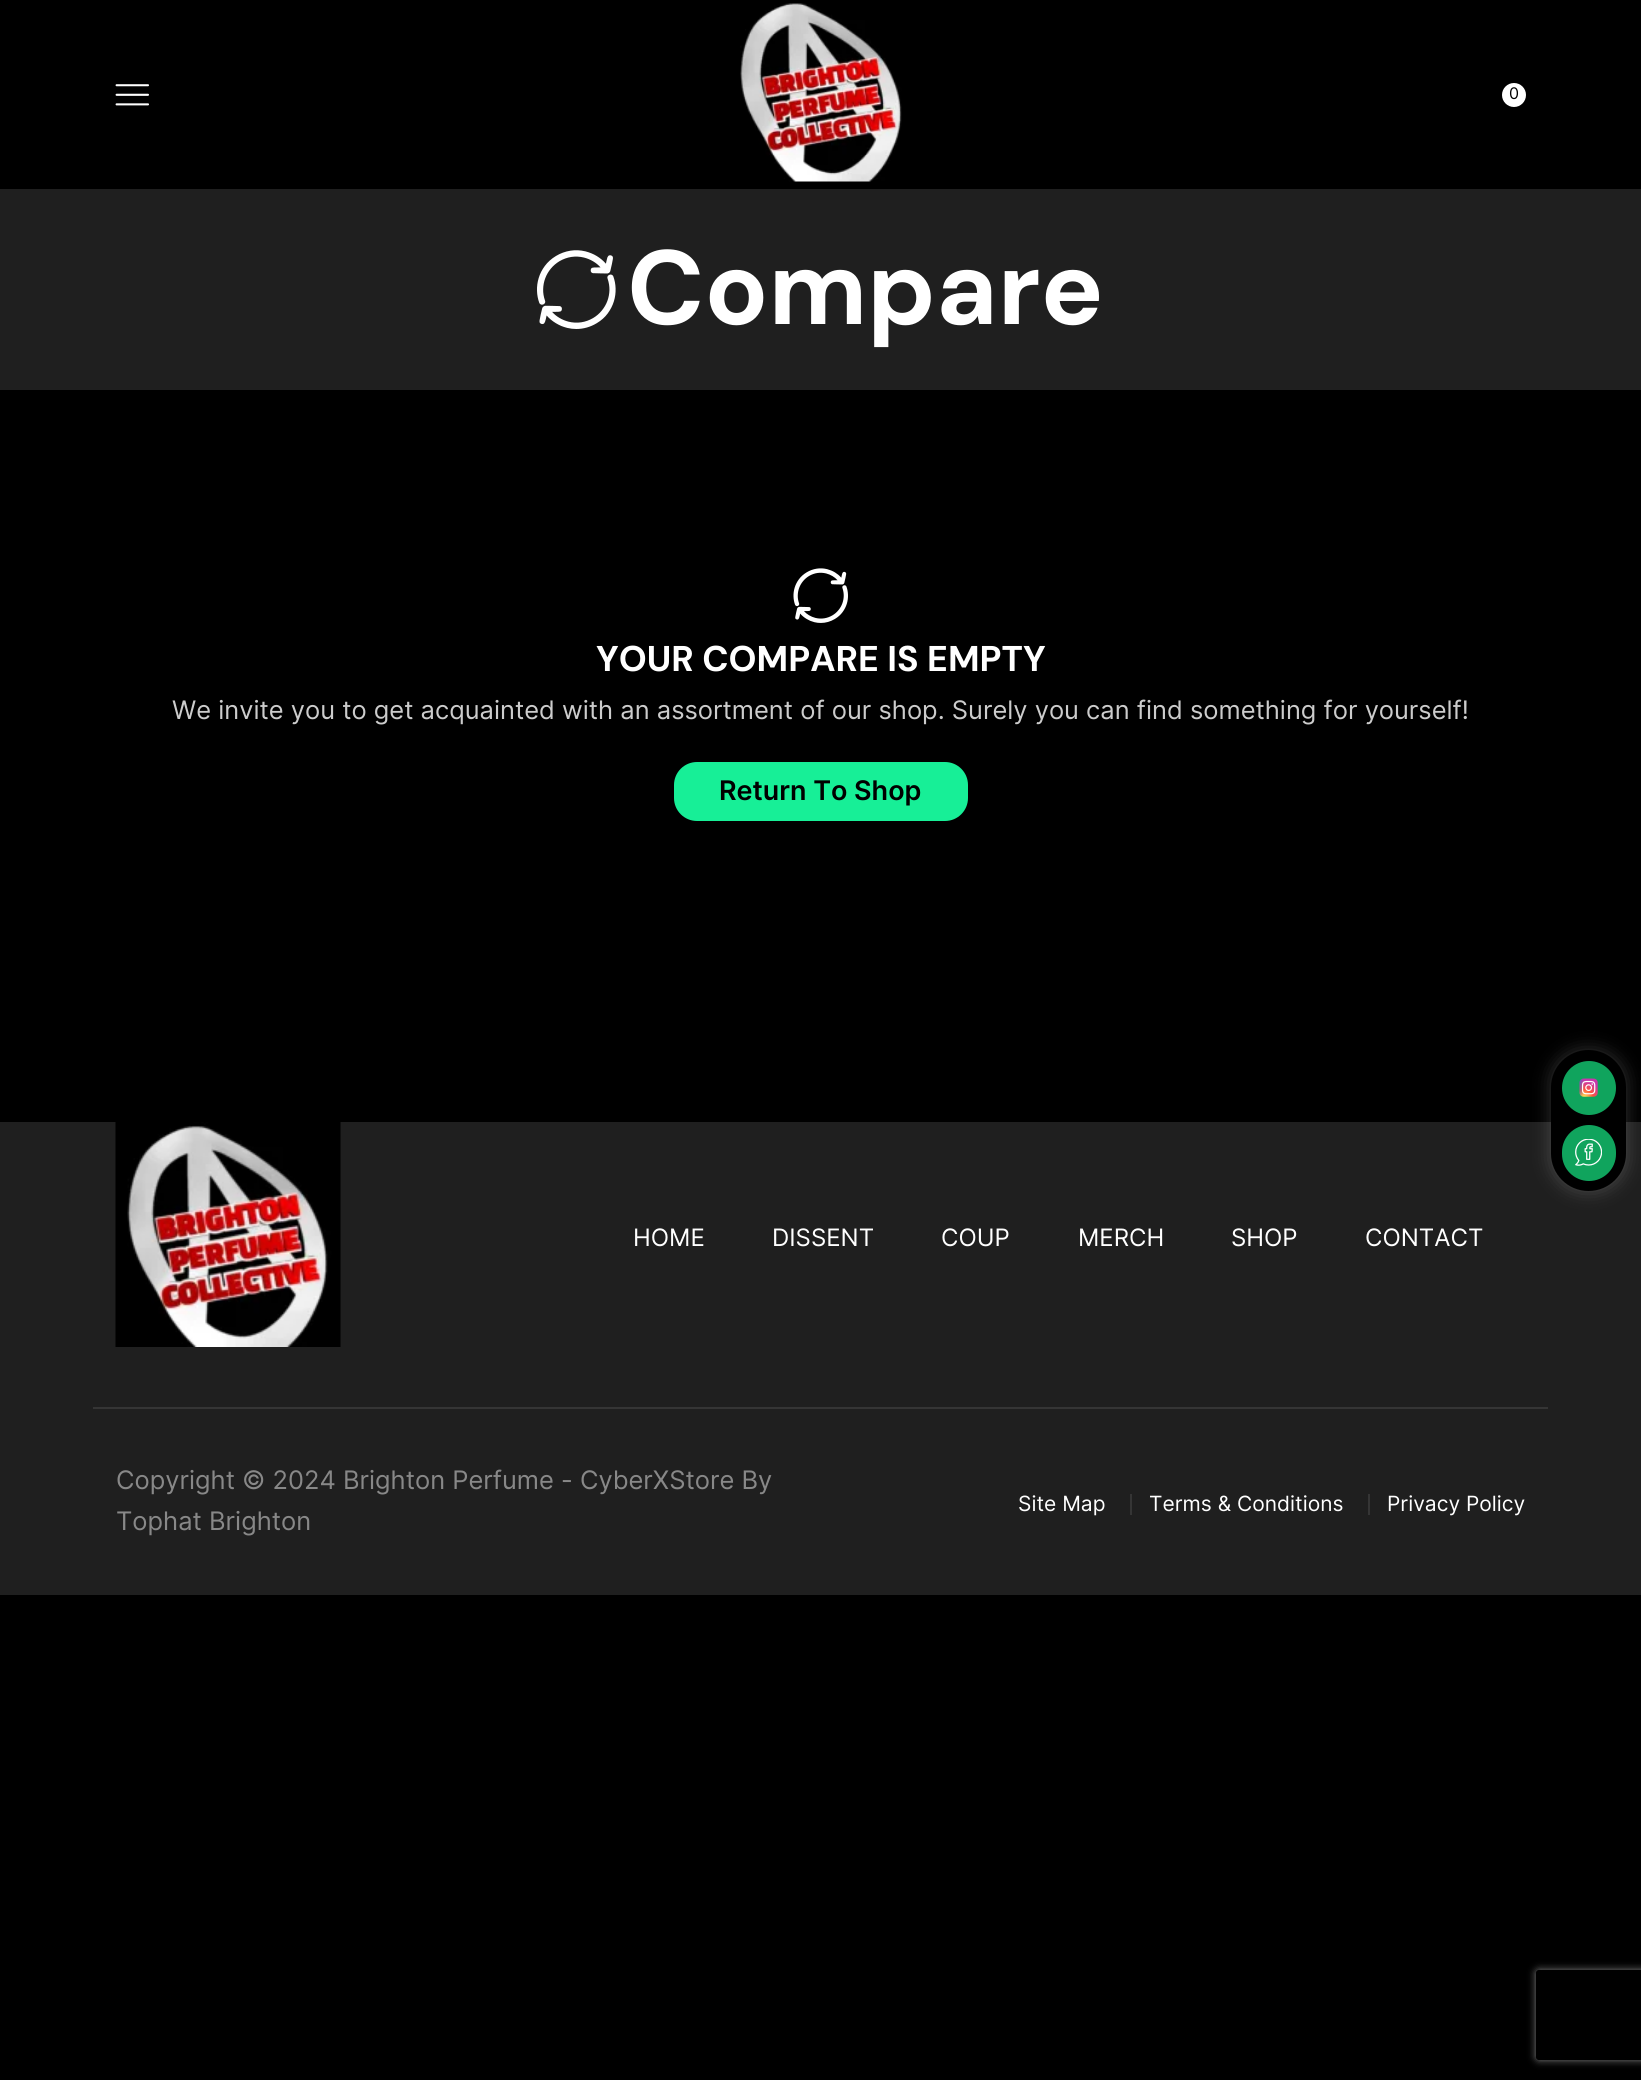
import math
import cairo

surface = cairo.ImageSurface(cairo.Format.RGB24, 1641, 2080)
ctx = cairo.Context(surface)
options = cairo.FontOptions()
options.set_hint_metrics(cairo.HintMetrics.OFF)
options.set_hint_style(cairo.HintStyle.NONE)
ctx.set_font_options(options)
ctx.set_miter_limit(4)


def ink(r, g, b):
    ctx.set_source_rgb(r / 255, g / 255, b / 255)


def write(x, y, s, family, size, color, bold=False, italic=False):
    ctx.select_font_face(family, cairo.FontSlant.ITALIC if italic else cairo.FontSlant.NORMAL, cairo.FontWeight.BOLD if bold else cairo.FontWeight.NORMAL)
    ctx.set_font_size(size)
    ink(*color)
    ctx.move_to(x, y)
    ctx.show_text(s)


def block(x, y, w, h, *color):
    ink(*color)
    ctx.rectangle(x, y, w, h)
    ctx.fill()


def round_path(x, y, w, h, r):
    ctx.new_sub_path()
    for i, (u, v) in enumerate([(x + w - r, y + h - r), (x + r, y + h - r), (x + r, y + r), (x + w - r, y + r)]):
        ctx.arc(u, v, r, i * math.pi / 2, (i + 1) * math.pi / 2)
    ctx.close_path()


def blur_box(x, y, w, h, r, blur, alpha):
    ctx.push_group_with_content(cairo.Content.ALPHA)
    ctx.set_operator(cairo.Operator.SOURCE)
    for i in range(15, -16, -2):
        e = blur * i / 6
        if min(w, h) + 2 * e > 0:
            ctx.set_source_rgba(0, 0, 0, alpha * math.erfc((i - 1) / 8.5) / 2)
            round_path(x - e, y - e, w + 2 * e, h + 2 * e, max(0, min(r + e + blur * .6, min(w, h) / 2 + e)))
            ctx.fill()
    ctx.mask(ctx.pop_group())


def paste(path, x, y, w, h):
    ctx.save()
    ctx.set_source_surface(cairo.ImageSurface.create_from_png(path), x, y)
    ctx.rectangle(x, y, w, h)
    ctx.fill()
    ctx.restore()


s1 = dict(family="Inter", size=16, color=(0, 0, 0))
s2 = dict(family="DM Sans", size=105, color=(255, 255, 255), bold=True)
s3 = dict(family="DM Sans", size=35.75, color=(255, 255, 255), bold=True)
s4 = dict(family="Inter", size=25.5, color=(204, 204, 204))
s5 = dict(family="Inter SemiBold", size=27, color=(0, 0, 0))
s6 = dict(family="Inter", size=24, color=(255, 255, 255))
s7 = dict(family="Inter", size=25.5, color=(136, 136, 136))
s8 = dict(family="Inter", size=21, color=(255, 255, 255))

ink(0, 0, 0)
ctx.paint()
paste("pic1.png", 115, 84, 34, 22)
paste("pic2.png", 740, 3, 162, 179)
ink(255, 255, 255)
ctx.arc(1514, 95, 12, 0, 2 * math.pi)
ctx.fill()
write(1509, 99, "0", **s1)
block(0, 189, 1641, 201, 31, 31, 31)
paste("pic3.png", 537, 250, 79, 79)
write(627, 324, "Compare", **s2)
paste("pic4.png", 793, 568, 55, 55)
write(596, 671, "YOUR COMPARE IS EMPTY", **s3)
write(172, 719, "We invite you to get acquainted with an assortment of our shop. Surely you can find something for yourself!", **s4)
ink(23, 239, 151)
round_path(674, 762, 294, 59, 23)
ctx.fill()
write(719, 800, "Return To Shop", **s5)
block(0, 1122, 1641, 473, 31, 31, 31)
paste("pic5.png", 115, 1122, 226, 225)
write(633, 1246, "HOME", **s6)
write(772, 1246, "DISSENT", **s6)
write(941, 1246, "COUP", **s6)
write(1078, 1246, "MERCH", **s6)
write(1231, 1246, "SHOP", **s6)
write(1365, 1246, "CONTACT", **s6)
block(93, 1407, 1455, 2, 53, 53, 53)
write(116, 1489, "Copyright © 2024 Brighton Perfume - CyberXStore By", **s7)
write(116, 1530, "Tophat Brighton", **s7)
block(1130, 1494, 2, 21, 53, 53, 53)
write(1018, 1511, "Site Map", **s8)
block(1368, 1494, 2, 21, 53, 53, 53)
write(1149, 1511, "Terms & Conditions", **s8)
write(1387, 1511, "Privacy Policy", **s8)
ink(255, 255, 255)
blur_box(1551, 1050, 75, 141, 37.5, 9, 0.2)
ink(0, 0, 0)
round_path(1551, 1050, 75, 141, 37.5)
ctx.fill()
ink(16, 164, 93)
ctx.arc(1589, 1088, 27, 0, 2 * math.pi)
ctx.fill()
paste("pic6.png", 1579, 1078, 19, 19)
round_path(1562, 1125, 54, 56, 27)
ctx.fill()
paste("pic7.png", 1575, 1139, 27, 27)
ctx.save()
ctx.set_fill_rule(cairo.FillRule.EVEN_ODD)
ctx.new_path()
ctx.move_to(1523, 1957)
ctx.line_to(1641, 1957)
ctx.line_to(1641, 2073)
ctx.line_to(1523, 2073)
ctx.close_path()
ctx.move_to(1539, 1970)
ctx.line_to(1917, 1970)
ctx.curve_to(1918.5, 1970, 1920, 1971.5, 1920, 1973)
ctx.line_to(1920, 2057)
ctx.curve_to(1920, 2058.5, 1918.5, 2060, 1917, 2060)
ctx.line_to(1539, 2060)
ctx.curve_to(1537.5, 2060, 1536, 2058.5, 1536, 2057)
ctx.line_to(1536, 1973)
ctx.curve_to(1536, 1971.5, 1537.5, 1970, 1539, 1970)
ctx.close_path()
ctx.clip()
ink(128, 128, 128)
blur_box(1536, 1970, 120, 90, 3, 4, 1)
ctx.restore()
surface.write_to_png("screenshot.png")
